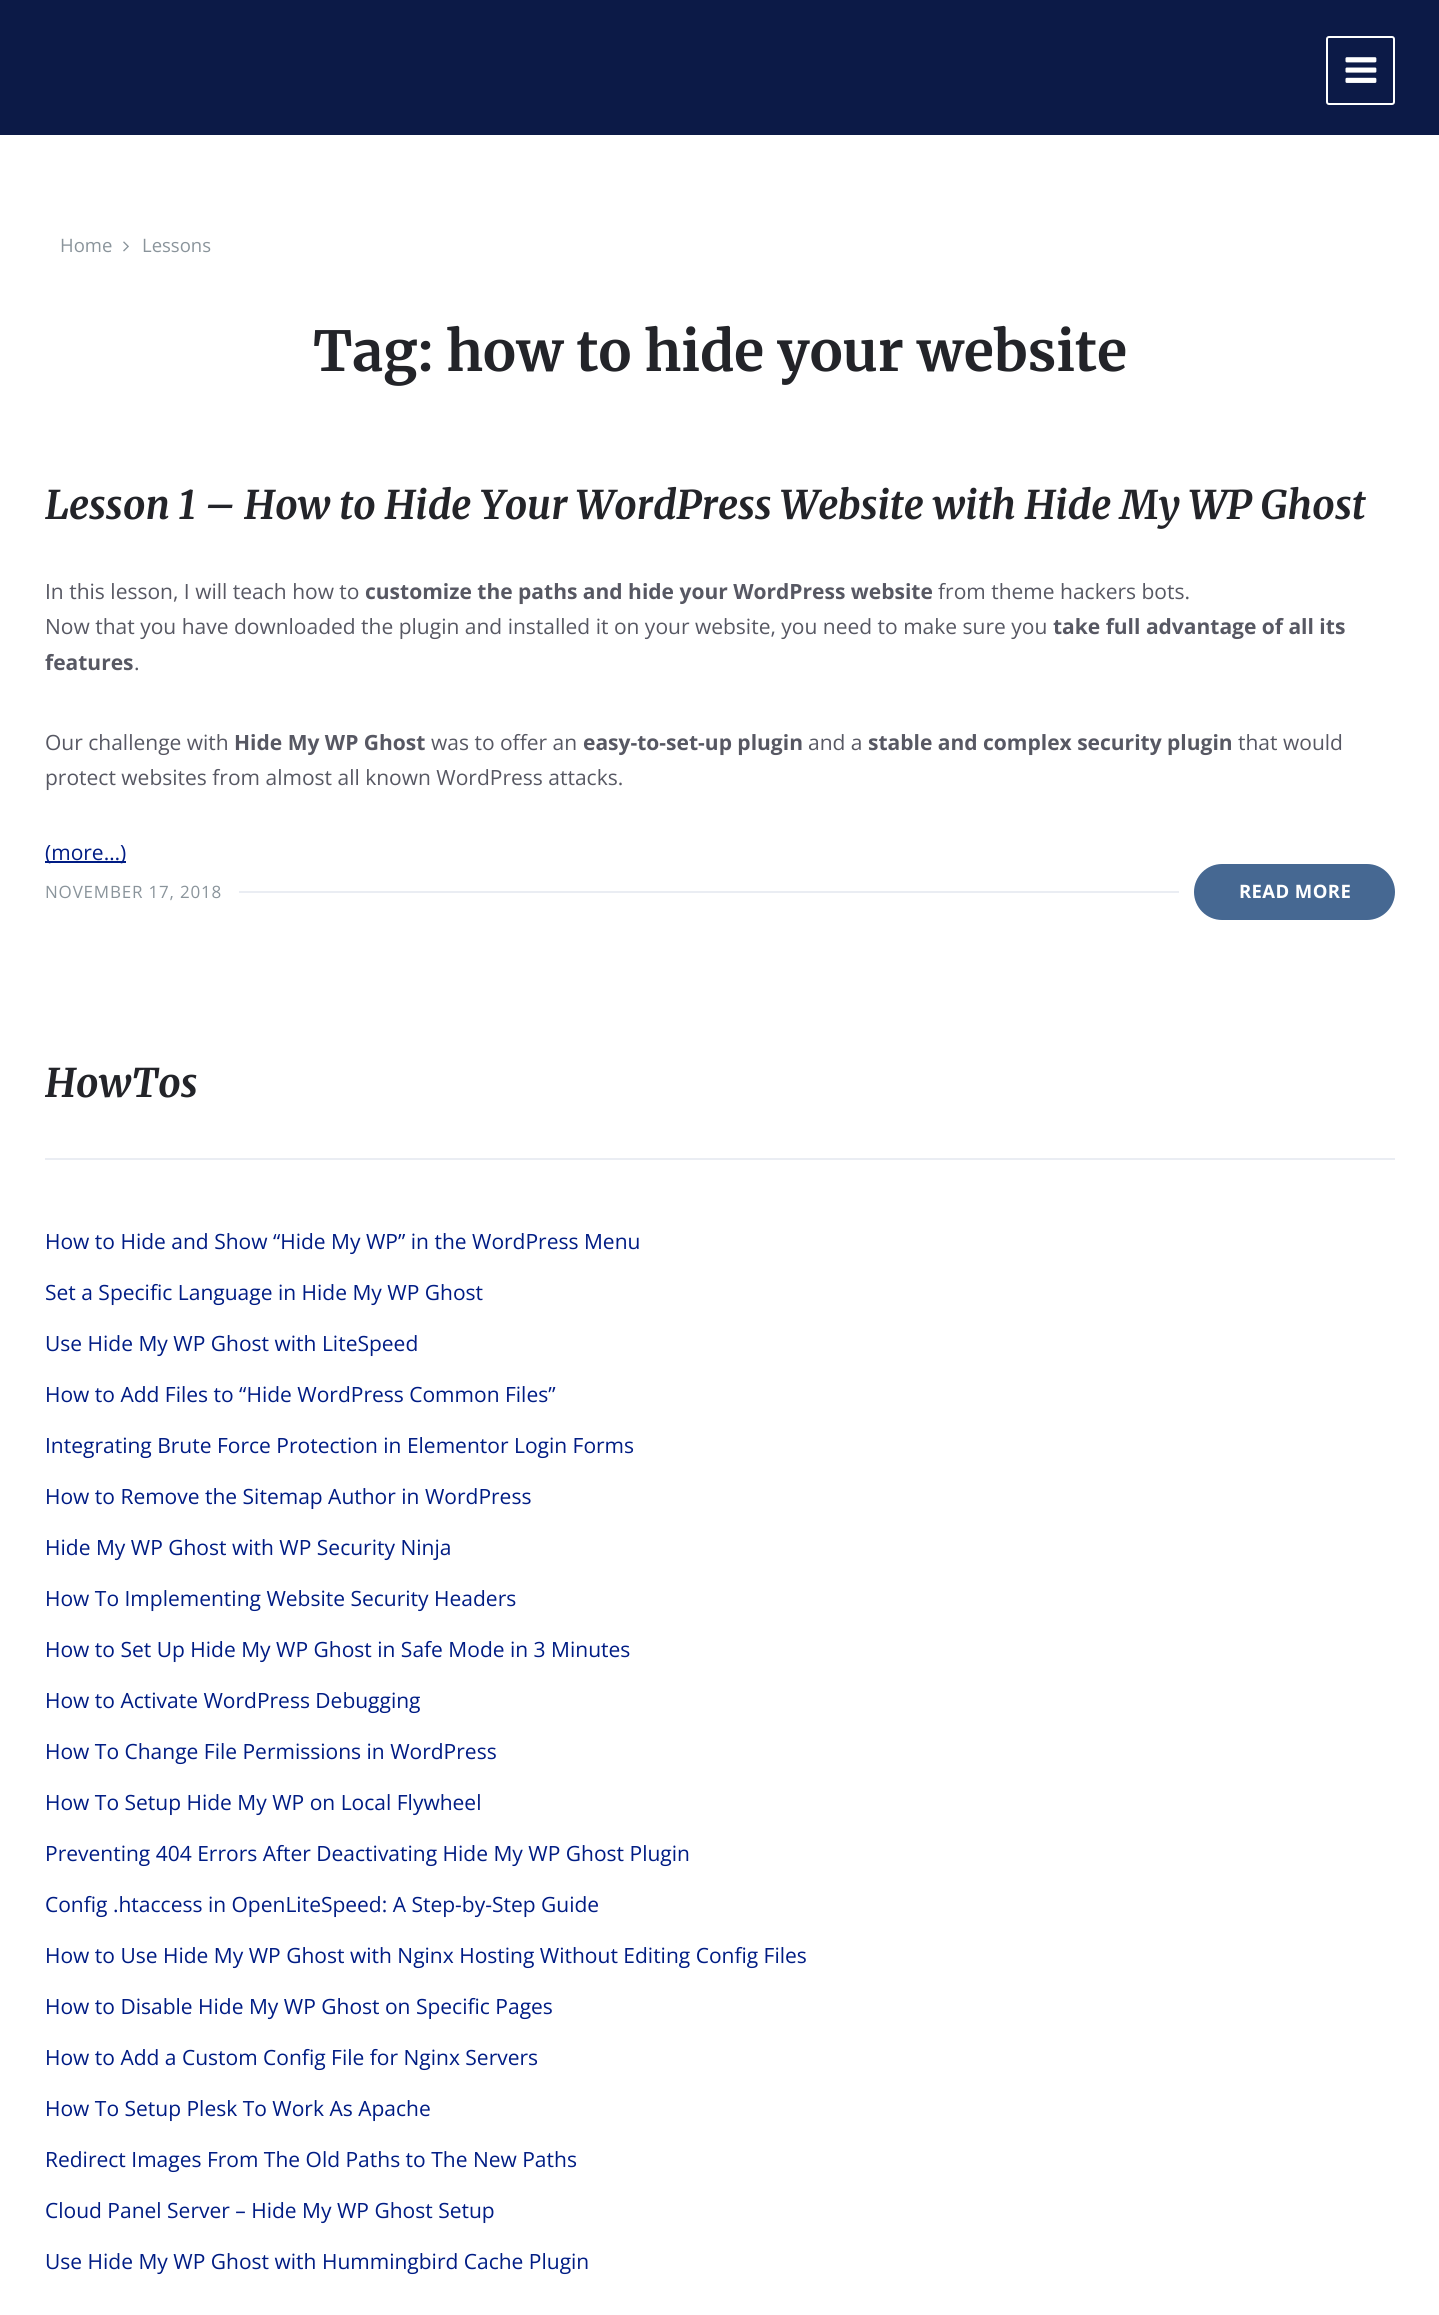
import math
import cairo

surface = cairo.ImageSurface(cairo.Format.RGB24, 1439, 2315)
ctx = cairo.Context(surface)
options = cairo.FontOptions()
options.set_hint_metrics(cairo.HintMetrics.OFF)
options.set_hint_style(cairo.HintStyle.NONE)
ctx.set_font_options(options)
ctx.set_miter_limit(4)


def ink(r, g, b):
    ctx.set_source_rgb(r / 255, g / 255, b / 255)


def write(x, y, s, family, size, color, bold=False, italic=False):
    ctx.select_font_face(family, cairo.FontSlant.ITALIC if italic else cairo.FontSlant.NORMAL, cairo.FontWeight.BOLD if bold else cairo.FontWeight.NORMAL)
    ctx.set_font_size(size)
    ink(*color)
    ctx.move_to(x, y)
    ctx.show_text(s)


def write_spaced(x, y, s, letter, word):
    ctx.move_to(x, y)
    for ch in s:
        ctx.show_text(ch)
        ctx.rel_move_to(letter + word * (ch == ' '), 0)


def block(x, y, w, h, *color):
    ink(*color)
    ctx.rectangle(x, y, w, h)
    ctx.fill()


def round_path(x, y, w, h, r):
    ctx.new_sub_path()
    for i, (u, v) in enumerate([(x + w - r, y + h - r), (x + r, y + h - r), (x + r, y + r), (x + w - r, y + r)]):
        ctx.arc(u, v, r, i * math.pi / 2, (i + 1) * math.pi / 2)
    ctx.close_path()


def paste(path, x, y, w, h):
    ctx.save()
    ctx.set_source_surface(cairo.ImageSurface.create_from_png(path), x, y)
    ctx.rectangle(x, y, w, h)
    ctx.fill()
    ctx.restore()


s1 = dict(family="Open Sans", size=18.5, color=(138, 148, 155))
s2 = dict(family="Merriweather", size=55.1, color=(35, 36, 41), bold=True)
s3 = dict(family="Merriweather", size=39.4, color=(35, 36, 41), bold=True, italic=True)
s4 = dict(family="Open Sans", size=21, color=(87, 88, 99))
s5 = dict(family="Open Sans", size=21, color=(87, 88, 99), bold=True)
s6 = dict(family="Open Sans", size=21, color=(0, 28, 132))

ink(255, 255, 255)
ctx.paint()
block(0, 0, 1439, 135, 12, 26, 71)
round_path(1327, 37, 67, 67, 2)
ink(255, 255, 255)
ctx.stroke()
paste("pic1.png", 1345, 57, 32, 26)
write(60, 252, "Home", **s1)
paste("pic2.png", 123, 241, 6, 11)
write(142, 252, "Lessons", **s1)
write(313, 371, "Tag: how to hide your website", **s2)
write(45, 519, "Lesson 1 – How to Hide Your WordPress Website with Hide My WP Ghost", **s3)
write(45, 599, "In this lesson, I will teach how to", **s4)
write(365, 599, "customize the paths and hide your WordPress website", **s5)
write(938, 599, "from theme hackers bots.", **s4)
write(45, 634, "Now that you have downloaded the plugin and installed it on your website, you need to make sure you", **s4)
write(1053, 634, "take full advantage of all its", **s5)
write(45, 670, "features", **s5)
write(134, 670, ".", **s4)
write(45, 750, "Our challenge with", **s4)
write(234, 750, "Hide My WP Ghost", **s5)
write(431, 750, "was to offer an", **s4)
write(583, 750, "easy-to-set-up plugin", **s5)
write(808, 750, "and a", **s4)
write(868, 750, "stable and complex security plugin", **s5)
write(1238, 750, "that would", **s4)
write(45, 785, "protect websites from almost all known WordPress attacks.", **s4)
block(45, 861, 81, 2, 0, 28, 132)
write(45, 860, "(more…)", **s6)
ctx.set_font_size(17)
ink(138, 148, 155)
write_spaced(45, 898, "NOVEMBER 17, 2018", 0.8, 0)
ink(70, 104, 146)
round_path(1194, 864, 201, 56, 28)
ctx.fill()
ctx.select_font_face("Open Sans", cairo.FontSlant.NORMAL, cairo.FontWeight.BOLD)
ctx.set_font_size(18.5)
ink(255, 255, 255)
write_spaced(1239, 898, "READ MORE", 0.4, 0)
block(239, 891, 940, 2, 234, 237, 243)
write(45, 1097, "HowTos", **s3)
block(45, 1158, 1350, 2, 234, 237, 243)
write(45, 1249, "How to Hide and Show “Hide My WP” in the WordPress Menu", **s6)
write(45, 1300, "Set a Specific Language in Hide My WP Ghost", **s6)
write(45, 1351, "Use Hide My WP Ghost with LiteSpeed", **s6)
write(45, 1402, "How to Add Files to “Hide WordPress Common Files”", **s6)
write(45, 1453, "Integrating Brute Force Protection in Elementor Login Forms", **s6)
write(45, 1504, "How to Remove the Sitemap Author in WordPress", **s6)
write(45, 1555, "Hide My WP Ghost with WP Security Ninja", **s6)
write(45, 1606, "How To Implementing Website Security Headers", **s6)
write(45, 1657, "How to Set Up Hide My WP Ghost in Safe Mode in 3 Minutes", **s6)
write(45, 1708, "How to Activate WordPress Debugging", **s6)
write(45, 1759, "How To Change File Permissions in WordPress", **s6)
write(45, 1810, "How To Setup Hide My WP on Local Flywheel", **s6)
write(45, 1861, "Preventing 404 Errors After Deactivating Hide My WP Ghost Plugin", **s6)
write(45, 1912, "Config .htaccess in OpenLiteSpeed: A Step-by-Step Guide", **s6)
write(45, 1963, "How to Use Hide My WP Ghost with Nginx Hosting Without Editing Config Files", **s6)
write(45, 2014, "How to Disable Hide My WP Ghost on Specific Pages", **s6)
write(45, 2065, "How to Add a Custom Config File for Nginx Servers", **s6)
write(45, 2116, "How To Setup Plesk To Work As Apache", **s6)
write(45, 2167, "Redirect Images From The Old Paths to The New Paths", **s6)
write(45, 2218, "Cloud Panel Server – Hide My WP Ghost Setup", **s6)
write(45, 2269, "Use Hide My WP Ghost with Hummingbird Cache Plugin", **s6)
surface.write_to_png("screenshot.png")
